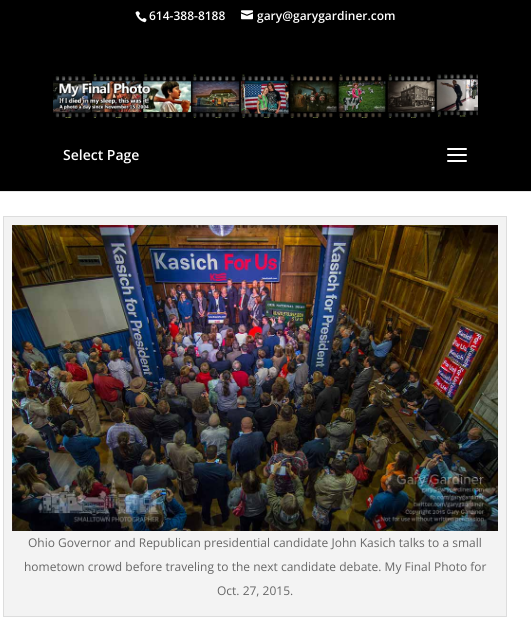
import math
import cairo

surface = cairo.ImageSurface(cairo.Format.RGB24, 531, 632)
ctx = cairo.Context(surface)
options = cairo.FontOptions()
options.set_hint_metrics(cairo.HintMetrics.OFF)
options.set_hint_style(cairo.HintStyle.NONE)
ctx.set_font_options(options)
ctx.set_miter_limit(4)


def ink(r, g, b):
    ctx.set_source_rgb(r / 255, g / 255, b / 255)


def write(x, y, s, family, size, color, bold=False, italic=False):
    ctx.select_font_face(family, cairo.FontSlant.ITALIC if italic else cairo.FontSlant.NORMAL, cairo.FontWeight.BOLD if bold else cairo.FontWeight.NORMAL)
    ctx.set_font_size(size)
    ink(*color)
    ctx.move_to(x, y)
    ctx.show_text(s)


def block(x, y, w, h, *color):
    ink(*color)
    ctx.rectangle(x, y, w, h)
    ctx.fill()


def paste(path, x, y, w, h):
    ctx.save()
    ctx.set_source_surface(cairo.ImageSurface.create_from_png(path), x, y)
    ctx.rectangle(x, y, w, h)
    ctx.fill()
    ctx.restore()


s1 = dict(family="Open Sans SemiBold", size=12, color=(255, 255, 255))
s2 = dict(family="Open Sans SemiBold", size=14, color=(255, 255, 255))
s3 = dict(family="Open Sans", size=12, color=(102, 102, 102))

ink(255, 255, 255)
ctx.paint()
block(0, 0, 531, 191, 0, 0, 0)
paste("pic1.png", 135, 11, 12, 12)
write(149, 20, "614-388-8188", **s1)
paste("pic2.png", 241, 10, 12, 10)
write(257, 20, "gary@garygardiner.com", **s1)
block(0, 191, 531, 1, 230, 230, 230)
paste("pic3.png", 53, 74, 425, 44)
write(63, 160, "Select Page", **s2)
paste("pic4.png", 447, 148, 20, 14)
ink(243, 243, 243)
ctx.rectangle(3.5, 216.5, 503, 400)
ctx.fill_preserve()
ink(221, 221, 221)
ctx.set_line_width(1)
ctx.stroke()
paste("pic5.png", 12, 225, 486, 306)
write(28, 547, "Ohio Governor and Republican presidential candidate John Kasich talks to a small", **s3)
write(24, 571, "hometown crowd before traveling to the next candidate debate. My Final Photo for", **s3)
write(217, 595, "Oct. 27, 2015.", **s3)
surface.write_to_png("screenshot.png")
